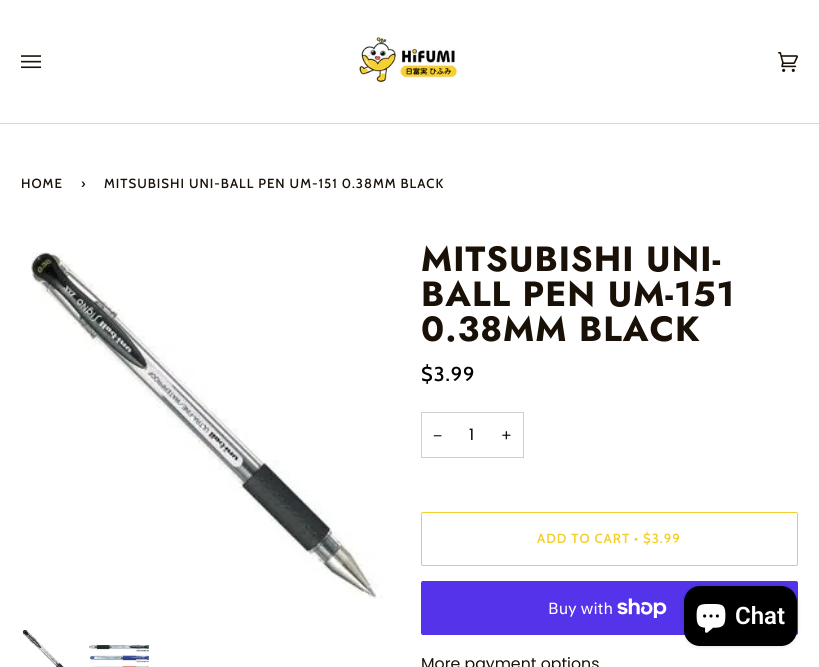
import math
import cairo

surface = cairo.ImageSurface(cairo.Format.RGB24, 819, 667)
ctx = cairo.Context(surface)
options = cairo.FontOptions()
options.set_hint_metrics(cairo.HintMetrics.OFF)
options.set_hint_style(cairo.HintStyle.NONE)
ctx.set_font_options(options)
ctx.set_miter_limit(4)


def ink(r, g, b):
    ctx.set_source_rgb(r / 255, g / 255, b / 255)


def write(x, y, s, family, size, color, bold=False, italic=False):
    ctx.select_font_face(family, cairo.FontSlant.ITALIC if italic else cairo.FontSlant.NORMAL, cairo.FontWeight.BOLD if bold else cairo.FontWeight.NORMAL)
    ctx.set_font_size(size)
    ink(*color)
    ctx.move_to(x, y)
    ctx.show_text(s)


def write_spaced(x, y, s, letter, word):
    ctx.move_to(x, y)
    for ch in s:
        ctx.show_text(ch)
        ctx.rel_move_to(letter + word * (ch == ' '), 0)


def block(x, y, w, h, *color):
    ink(*color)
    ctx.rectangle(x, y, w, h)
    ctx.fill()


def round_path(x, y, w, h, r):
    ctx.new_sub_path()
    for i, (u, v) in enumerate([(x + w - r, y + h - r), (x + r, y + h - r), (x + r, y + r), (x + w - r, y + r)]):
        ctx.arc(u, v, r, i * math.pi / 2, (i + 1) * math.pi / 2)
    ctx.close_path()


def blur_box(x, y, w, h, r, blur, alpha):
    ctx.push_group_with_content(cairo.Content.ALPHA)
    ctx.set_operator(cairo.Operator.SOURCE)
    for i in range(15, -16, -2):
        e = blur * i / 6
        if min(w, h) + 2 * e > 0:
            ctx.set_source_rgba(0, 0, 0, alpha * math.erfc((i - 1) / 8.5) / 2)
            round_path(x - e, y - e, w + 2 * e, h + 2 * e, max(0, min(r + e + blur * .6, min(w, h) / 2 + e)))
            ctx.fill()
    ctx.mask(ctx.pop_group())


def paste(path, x, y, w, h):
    ctx.save()
    ctx.set_source_surface(cairo.ImageSurface.create_from_png(path), x, y)
    ctx.rectangle(x, y, w, h)
    ctx.fill()
    ctx.restore()


s1 = dict(family="Liberation Sans", size=15.75, color=(25, 16, 8))
s2 = dict(family="Poppins", size=15.75, color=(0, 0, 0))
s3 = dict(family="Poppins", size=15.75, color=(25, 16, 8))
s4 = dict(family="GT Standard", size=16, color=(255, 255, 255))
s5 = dict(family="Roboto SemiBold", size=24, color=(255, 255, 255))

ink(255, 255, 255)
ctx.paint()
block(0, 123, 819, 1, 215, 215, 215)
paste("pic1.png", 21, 55, 20, 14)
paste("pic2.png", 359, 34, 100, 50)
paste("pic3.png", 778, 52, 20, 20)
ctx.select_font_face("Cabin Medium")
ctx.set_font_size(13.2)
ink(25, 16, 8)
write_spaced(21, 188, "HOME", 1, 0)
write_spaced(81, 188, "›", 1, 0)
write_spaced(104, 188, "MITSUBISHI UNI-BALL PEN UM-151 0.38MM BLACK", 1, 0)
paste("pic4.png", 31, 252, 352, 347)
paste("pic5.png", 22, 630, 43, 37)
paste("pic6.png", 89, 644, 60, 23)
ctx.select_font_face("Jost", cairo.FontSlant.NORMAL, cairo.FontWeight.BOLD)
ctx.set_font_size(35)
write_spaced(421, 271, "MITSUBISHI UNI-", 1, 0)
write_spaced(421, 306, "BALL PEN UM-151", 1, 0)
write_spaced(421, 341, "0.38MM BLACK", 1, 0)
ctx.select_font_face("Cabin Medium")
ctx.set_font_size(20)
ink(0, 0, 0)
write_spaced(421, 381, "$3.99", 1, 0)
ctx.rectangle(421.5, 412.5, 102, 45)
ink(209, 207, 206)
ctx.set_line_width(1)
ctx.stroke()
write(433, 441, "−", **s1)
write(469, 440, "1", **s2)
write(501, 441, "+", **s3)
round_path(421.5, 512.5, 376, 53, 1.5)
ink(243, 206, 47)
ctx.stroke()
ctx.select_font_face("Cabin SemiBold")
ctx.set_font_size(13.2)
write_spaced(537, 543, "ADD TO CART • $3.99", 1, 0)
ink(84, 51, 235)
round_path(421, 581, 377, 54, 2)
ctx.fill()
write(548, 614, "Buy with", **s4)
paste("pic7.png", 617, 598, 50, 20)
write(421, 669, "More payment options", **s3)
ink(0, 0, 0)
blur_box(684, 586, 113, 60, 16, 2.5, 0.15)
ink(0, 0, 0)
round_path(684, 586, 113, 60, 16)
ctx.fill()
paste("pic8.png", 696, 604, 30, 29)
write(735, 624, "Chat", **s5)
surface.write_to_png("screenshot.png")
